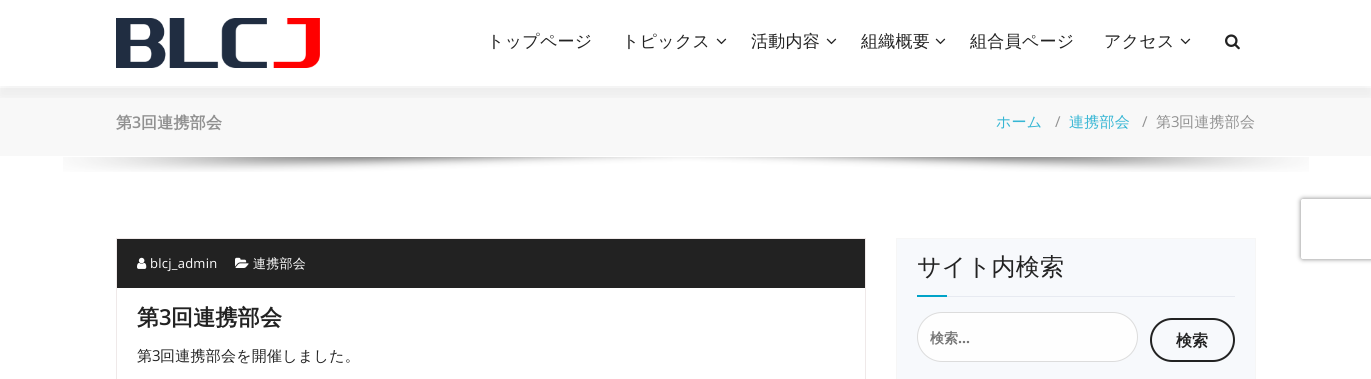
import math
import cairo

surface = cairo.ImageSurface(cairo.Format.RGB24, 1371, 379)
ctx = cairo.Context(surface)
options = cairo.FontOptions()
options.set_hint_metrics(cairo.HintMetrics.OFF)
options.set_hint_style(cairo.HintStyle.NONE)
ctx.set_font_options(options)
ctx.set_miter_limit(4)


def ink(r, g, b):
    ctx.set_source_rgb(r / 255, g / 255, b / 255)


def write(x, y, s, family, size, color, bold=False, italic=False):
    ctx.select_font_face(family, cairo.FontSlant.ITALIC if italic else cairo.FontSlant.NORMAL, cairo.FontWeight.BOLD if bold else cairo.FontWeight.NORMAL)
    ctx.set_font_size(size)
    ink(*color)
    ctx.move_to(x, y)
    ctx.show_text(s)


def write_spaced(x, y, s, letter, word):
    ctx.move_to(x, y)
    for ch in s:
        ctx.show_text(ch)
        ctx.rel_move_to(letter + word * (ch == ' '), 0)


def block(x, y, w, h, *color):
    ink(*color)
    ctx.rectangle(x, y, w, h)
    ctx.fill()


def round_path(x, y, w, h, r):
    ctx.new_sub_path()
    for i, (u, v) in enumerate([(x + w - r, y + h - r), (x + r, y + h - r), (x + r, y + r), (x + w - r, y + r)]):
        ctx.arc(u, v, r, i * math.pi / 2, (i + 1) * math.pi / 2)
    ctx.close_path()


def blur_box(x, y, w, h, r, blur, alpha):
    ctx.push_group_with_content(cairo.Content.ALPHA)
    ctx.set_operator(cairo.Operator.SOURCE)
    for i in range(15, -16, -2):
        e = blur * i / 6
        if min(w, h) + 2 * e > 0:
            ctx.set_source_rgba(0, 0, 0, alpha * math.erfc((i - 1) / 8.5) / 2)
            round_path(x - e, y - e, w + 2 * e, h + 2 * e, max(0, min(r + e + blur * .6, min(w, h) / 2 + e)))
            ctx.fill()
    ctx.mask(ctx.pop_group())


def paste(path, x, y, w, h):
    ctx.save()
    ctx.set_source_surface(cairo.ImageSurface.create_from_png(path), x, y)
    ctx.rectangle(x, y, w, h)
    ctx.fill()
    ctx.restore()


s1 = dict(family="WenQuanYi Zen Hei", size=14, color=(117, 117, 117), bold=True)
s2 = dict(family="Open Sans", size=14, color=(117, 117, 117), bold=True)
s3 = dict(family="WenQuanYi Zen Hei", size=16, color=(34, 34, 34), bold=True)

ink(255, 255, 255)
ctx.paint()
block(0, 88, 1371, 68, 248, 248, 248)
ctx.save()
ctx.rectangle(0, 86, 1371, 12)
ctx.clip()
ink(0, 0, 0)
blur_box(0, 10, 1371, 86, 0, 7.5, 0.05)
ctx.restore()
paste("pic1.png", 116, 18, 204, 50)
ctx.select_font_face("WenQuanYi Zen Hei Medium")
ctx.set_font_size(17)
ink(34, 34, 34)
write_spaced(487, 47, "トップページ", 0.25, 0)
write_spaced(622, 47, "トピックス", 0.25, 0)
paste("pic2.png", 716, 38, 11, 7)
write_spaced(751, 47, "活動内容", 0.25, 0)
paste("pic2.png", 826, 38, 11, 7)
write_spaced(861, 47, "組織概要", 0.25, 0)
paste("pic2.png", 935, 38, 11, 7)
write_spaced(970, 47, "組合員ページ", 0.25, 0)
write_spaced(1104, 47, "アクセス", 0.25, 0)
paste("pic2.png", 1180, 38, 11, 7)
paste("pic3.png", 1225, 34, 15, 16)
ctx.select_font_face("WenQuanYi Zen Hei", cairo.FontSlant.NORMAL, cairo.FontWeight.BOLD)
ctx.set_font_size(16)
ink(145, 145, 145)
write_spaced(116, 128, "第", 0.25, 0)
ctx.select_font_face("Open Sans SemiBold")
write_spaced(132, 128, "3", 0.25, 0)
ctx.select_font_face("WenQuanYi Zen Hei", cairo.FontSlant.NORMAL, cairo.FontWeight.BOLD)
write_spaced(141, 128, "回連携部会", 0.25, 0)
ctx.select_font_face("WenQuanYi Zen Hei Medium")
ctx.set_font_size(15)
ink(54, 182, 212)
write_spaced(996, 127, "ホーム", 0.25, 0)
ctx.select_font_face("Open Sans")
ink(145, 145, 145)
write_spaced(1055, 127, "/", 0.25, 0)
ctx.select_font_face("WenQuanYi Zen Hei Medium")
ink(54, 182, 212)
write_spaced(1069, 127, "連携部会", 0.25, 0)
ctx.select_font_face("Open Sans")
ink(145, 145, 145)
write_spaced(1142, 127, "/", 0.25, 0)
ctx.select_font_face("WenQuanYi Zen Hei Medium")
write_spaced(1156, 127, "第", 0.25, 0)
ctx.select_font_face("Open Sans")
write_spaced(1171, 127, "3", 0.25, 0)
ctx.select_font_face("WenQuanYi Zen Hei Medium")
write_spaced(1179, 127, "回連携部会", 0.25, 0)
paste("pic4.png", 63, 157, 1246, 15)
ctx.rectangle(116.5, 238.5, 749, 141)
ink(239, 233, 233)
ctx.set_line_width(1)
ctx.stroke()
block(117, 239, 748, 49, 34, 34, 34)
paste("pic5.png", 137, 257, 10, 12)
ctx.select_font_face("Open Sans")
ctx.set_font_size(13)
ink(255, 255, 255)
write_spaced(150, 268, "blcj_admin", 0.25, 0)
paste("pic6.png", 235, 257, 14, 11)
ctx.select_font_face("WenQuanYi Zen Hei Medium")
write_spaced(253, 268, "連携部会", 0.25, 0)
ctx.select_font_face("WenQuanYi Zen Hei", cairo.FontSlant.NORMAL, cairo.FontWeight.BOLD)
ctx.set_font_size(22)
ink(34, 34, 34)
write_spaced(137, 325, "第", 0.25, 0)
ctx.select_font_face("Open Sans SemiBold")
write_spaced(159, 325, "3", 0.25, 0)
ctx.select_font_face("WenQuanYi Zen Hei", cairo.FontSlant.NORMAL, cairo.FontWeight.BOLD)
write_spaced(171, 325, "回連携部会", 0.25, 0)
ctx.select_font_face("WenQuanYi Zen Hei Medium")
ctx.set_font_size(15)
write_spaced(137, 361, "第", 0.25, 0)
ctx.select_font_face("Open Sans")
write_spaced(152, 361, "3", 0.25, 0)
ctx.select_font_face("WenQuanYi Zen Hei Medium")
write_spaced(160, 361, "回連携部会を開催しました。", 0.25, 0)
ink(247, 249, 252)
ctx.rectangle(896.5, 238.5, 359, 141)
ctx.fill_preserve()
ink(246, 246, 246)
ctx.stroke()
block(947, 296, 288, 1, 231, 234, 241)
ctx.set_font_size(24)
ink(34, 34, 34)
write_spaced(917, 275, "サイト内検索", 0.25, 0)
block(917, 295, 30, 2, 0, 163, 200)
ink(254, 254, 254)
round_path(917.5, 312.5, 220, 49, 24.5)
ctx.fill_preserve()
ink(220, 220, 220)
ctx.stroke()
write(930, 343, "検索", **s1)
write(958, 343, "…", **s2)
round_path(1151, 319, 83, 42, 21)
ink(34, 34, 34)
ctx.set_line_width(2)
ctx.stroke()
write(1176, 346, "検索", **s3)
ctx.save()
ctx.set_fill_rule(cairo.FillRule.EVEN_ODD)
ctx.new_path()
ctx.move_to(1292, 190)
ctx.line_to(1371, 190)
ctx.line_to(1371, 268)
ctx.line_to(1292, 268)
ctx.close_path()
ctx.move_to(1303, 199)
ctx.line_to(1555, 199)
ctx.curve_to(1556, 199, 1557, 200, 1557, 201)
ctx.line_to(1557, 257)
ctx.curve_to(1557, 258, 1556, 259, 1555, 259)
ctx.line_to(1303, 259)
ctx.curve_to(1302, 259, 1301, 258, 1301, 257)
ctx.line_to(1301, 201)
ctx.curve_to(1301, 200, 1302, 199, 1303, 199)
ctx.close_path()
ctx.clip()
ink(128, 128, 128)
blur_box(1301, 199, 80, 60, 2, 2.5, 1)
ctx.restore()
surface.write_to_png("screenshot.png")
